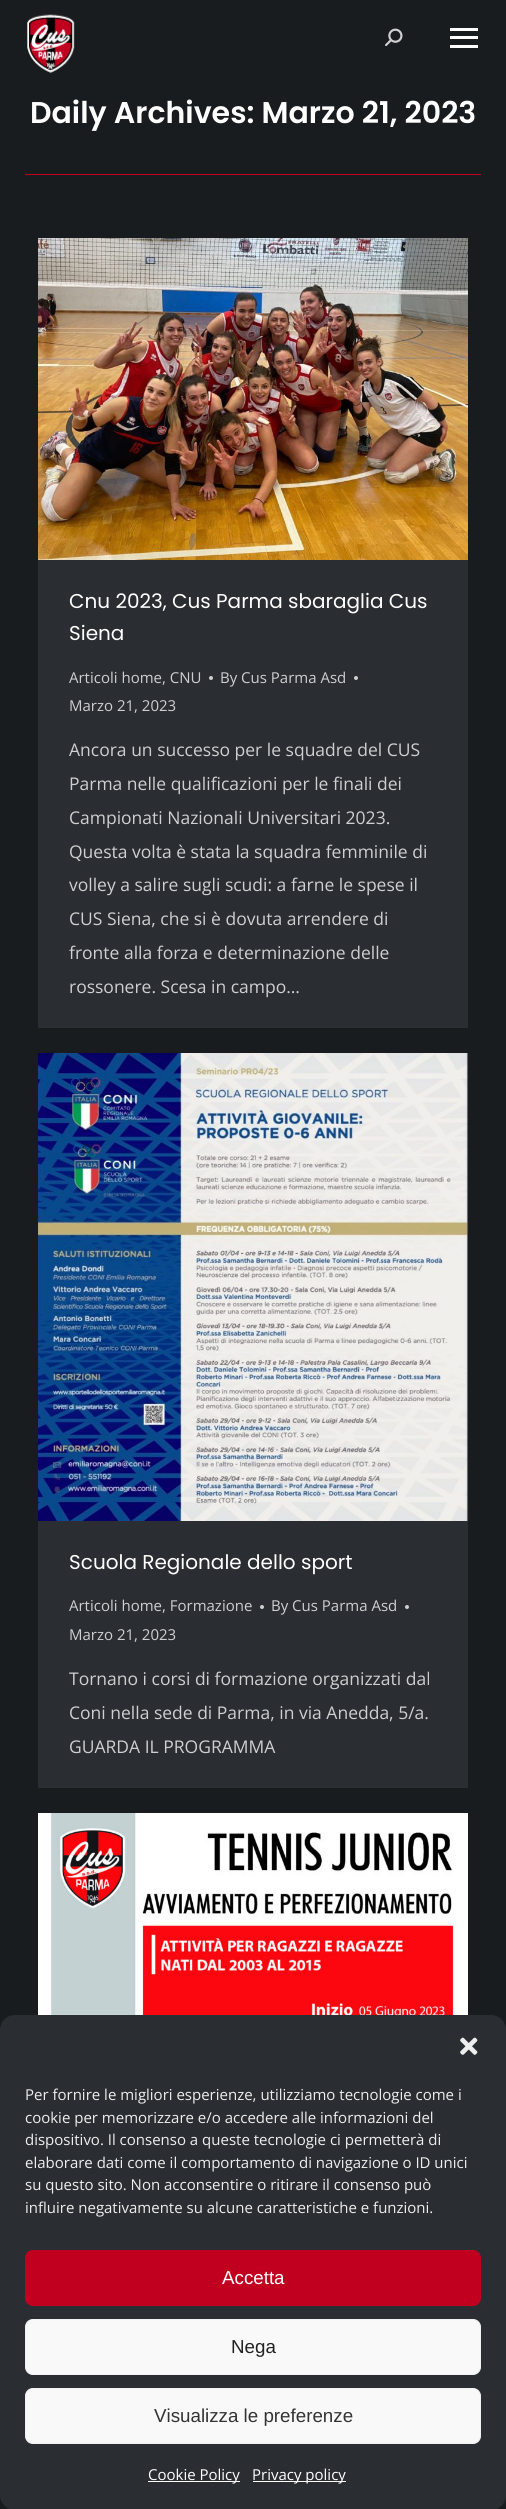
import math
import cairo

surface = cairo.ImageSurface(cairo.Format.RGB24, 506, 2509)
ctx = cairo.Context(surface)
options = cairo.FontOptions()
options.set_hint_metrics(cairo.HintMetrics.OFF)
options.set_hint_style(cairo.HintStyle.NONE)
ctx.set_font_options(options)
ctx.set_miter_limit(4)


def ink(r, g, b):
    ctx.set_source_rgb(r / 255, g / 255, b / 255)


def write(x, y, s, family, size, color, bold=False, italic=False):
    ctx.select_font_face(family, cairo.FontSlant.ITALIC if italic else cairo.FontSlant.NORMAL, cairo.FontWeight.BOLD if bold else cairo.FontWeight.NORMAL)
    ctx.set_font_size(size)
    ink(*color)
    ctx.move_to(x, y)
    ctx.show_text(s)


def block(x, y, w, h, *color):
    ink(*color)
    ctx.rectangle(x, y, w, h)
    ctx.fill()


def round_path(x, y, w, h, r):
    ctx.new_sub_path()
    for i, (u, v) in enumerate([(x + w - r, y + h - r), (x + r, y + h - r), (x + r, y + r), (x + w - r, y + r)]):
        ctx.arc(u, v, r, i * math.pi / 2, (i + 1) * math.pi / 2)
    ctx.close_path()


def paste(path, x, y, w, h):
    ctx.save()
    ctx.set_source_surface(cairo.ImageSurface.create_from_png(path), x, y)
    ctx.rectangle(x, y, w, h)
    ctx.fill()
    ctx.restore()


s1 = dict(family="Poppins SemiBold", size=30, color=(255, 255, 255))
s2 = dict(family="Poppins", size=20, color=(255, 255, 255))
s3 = dict(family="Open Sans", size=15, color=(206, 207, 208))
s4 = dict(family="Open Sans", size=17.5, color=(206, 207, 208))
s5 = dict(family="Open Sans", size=15, color=(238, 238, 238))
s6 = dict(family="Liberation Sans", size=18.75, color=(255, 255, 255))
s7 = dict(family="Liberation Sans", size=18.75, color=(34, 34, 34))
s8 = dict(family="Liberation Sans", size=18.75, color=(51, 51, 51))
s9 = dict(family="Open Sans", size=15, color=(255, 255, 255))

ink(25, 28, 31)
ctx.paint()
paste("pic1.png", 27, 14, 49, 59)
paste("pic2.png", 385, 28, 18, 19)
block(450, 28, 28, 3, 255, 255, 255)
block(450, 36, 28, 3, 255, 255, 255)
block(450, 45, 28, 3, 255, 255, 255)
write(30, 123, "Daily Archives: Marzo 21, 2023", **s1)
block(25, 174, 456, 1, 193, 0, 31)
block(38, 560, 430, 468, 42, 45, 50)
paste("pic3.png", 38, 238, 430, 322)
write(69, 608, "Cnu 2023, Cus Parma sbaraglia Cus", **s2)
write(69, 640, "Siena", **s2)
write(69, 683, "Articoli home, CNU", **s3)
ctx.new_path()
ctx.arc(211, 678, 2, 0, 2 * math.pi)
ctx.fill()
write(220, 683, "By Cus Parma Asd", **s3)
ctx.new_path()
ctx.arc(356, 678, 2, 0, 2 * math.pi)
ctx.fill()
write(69, 711, "Marzo 21, 2023", **s3)
write(69, 756, "Ancora un successo per le squadre del CUS", **s4)
write(69, 790, "Parma nelle qualificazioni per le finali dei", **s4)
write(69, 824, "Campionati Nazionali Universitari 2023.", **s4)
write(69, 858, "Questa volta è stata la squadra femminile di", **s4)
write(69, 891, "volley a salire sugli scudi: a farne le spese il", **s4)
write(69, 925, "CUS Siena, che si è dovuta arrendere di", **s4)
write(69, 959, "fronte alla forza e determinazione delle", **s4)
write(69, 993, "rossonere. Scesa in campo…", **s4)
block(38, 1053, 430, 735, 42, 45, 50)
paste("pic4.png", 38, 1053, 430, 468)
write(69, 1569, "Scuola Regionale dello sport", **s2)
write(69, 1611, "Articoli home, Formazione", **s3)
ctx.new_path()
ctx.arc(262, 1607, 2, 0, 2 * math.pi)
ctx.fill()
write(271, 1611, "By Cus Parma Asd", **s3)
ctx.new_path()
ctx.arc(407, 1607, 2, 0, 2 * math.pi)
ctx.fill()
write(69, 1640, "Marzo 21, 2023", **s3)
write(69, 1685, "Tornano i corsi di formazione organizzati dal", **s4)
write(69, 1719, "Coni nella sede di Parma, in via Anedda, 5/a.", **s4)
write(69, 1753, "GUARDA IL PROGRAMMA", **s4)
paste("pic5.png", 38, 1813, 430, 202)
ink(42, 45, 50)
round_path(0, 2015, 506, 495, 15)
ctx.fill()
paste("pic6.png", 460, 2037, 18, 18)
write(25, 2100, "Per fornire le migliori esperienze, utilizziamo tecnologie come i", **s5)
write(25, 2123, "cookie per memorizzare e/o accedere alle informazioni del", **s5)
write(25, 2145, "dispositivo. Il consenso a queste tecnologie ci permetterà di", **s5)
write(25, 2168, "elaborare dati come il comportamento di navigazione o ID unici", **s5)
write(25, 2190, "su questo sito. Non acconsentire o ritirare il consenso può", **s5)
write(25, 2213, "influire negativamente su alcune caratteristiche e funzioni.", **s5)
ink(193, 0, 31)
round_path(25.5, 2250.5, 455, 55, 7.5)
ctx.fill_preserve()
ctx.set_line_width(1)
ctx.stroke()
write(222, 2284, "Accetta", **s6)
ink(249, 249, 249)
round_path(25.5, 2319.5, 455, 55, 7.5)
ctx.fill_preserve()
ink(242, 242, 242)
ctx.stroke()
write(231, 2353, "Nega", **s7)
ink(249, 249, 249)
round_path(25.5, 2388.5, 455, 55, 7.5)
ctx.fill_preserve()
ink(242, 242, 242)
ctx.stroke()
write(154, 2422, "Visualizza le preferenze", **s8)
block(148, 2481, 92, 1, 255, 255, 255)
write(148, 2480, "Cookie Policy", **s9)
block(253, 2481, 93, 1, 255, 255, 255)
write(252, 2480, "Privacy policy", **s9)
surface.write_to_png("screenshot.png")
